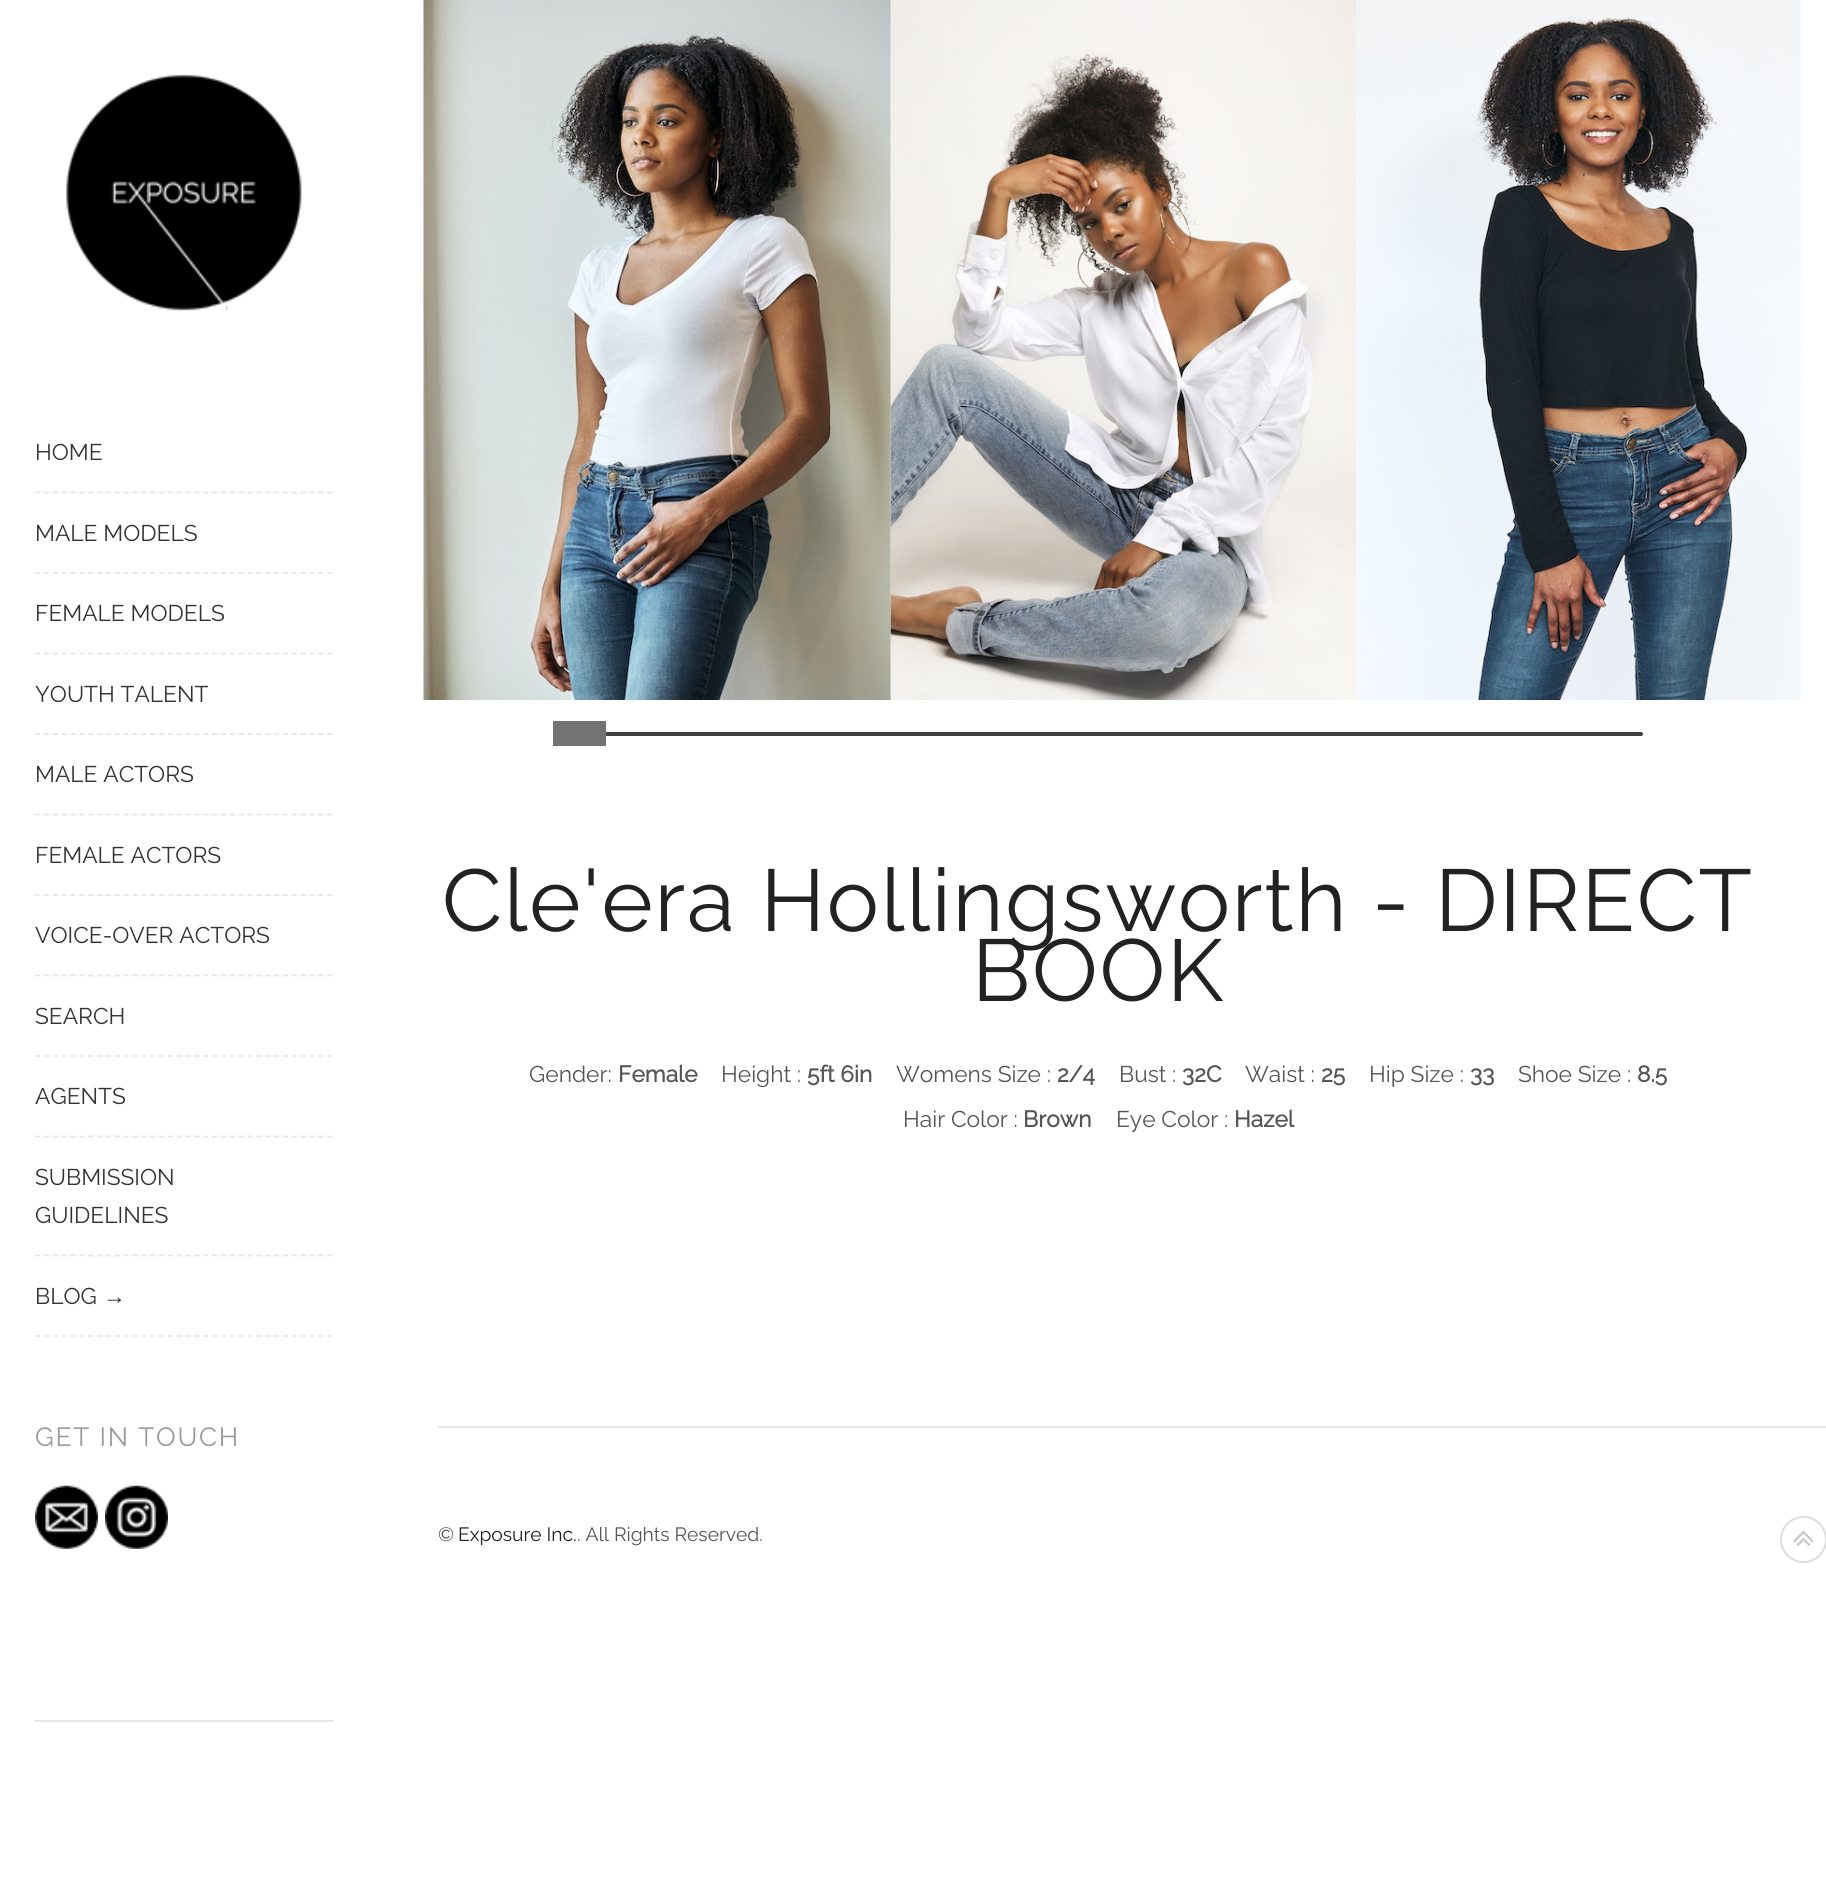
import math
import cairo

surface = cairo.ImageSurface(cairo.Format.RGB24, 1826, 1895)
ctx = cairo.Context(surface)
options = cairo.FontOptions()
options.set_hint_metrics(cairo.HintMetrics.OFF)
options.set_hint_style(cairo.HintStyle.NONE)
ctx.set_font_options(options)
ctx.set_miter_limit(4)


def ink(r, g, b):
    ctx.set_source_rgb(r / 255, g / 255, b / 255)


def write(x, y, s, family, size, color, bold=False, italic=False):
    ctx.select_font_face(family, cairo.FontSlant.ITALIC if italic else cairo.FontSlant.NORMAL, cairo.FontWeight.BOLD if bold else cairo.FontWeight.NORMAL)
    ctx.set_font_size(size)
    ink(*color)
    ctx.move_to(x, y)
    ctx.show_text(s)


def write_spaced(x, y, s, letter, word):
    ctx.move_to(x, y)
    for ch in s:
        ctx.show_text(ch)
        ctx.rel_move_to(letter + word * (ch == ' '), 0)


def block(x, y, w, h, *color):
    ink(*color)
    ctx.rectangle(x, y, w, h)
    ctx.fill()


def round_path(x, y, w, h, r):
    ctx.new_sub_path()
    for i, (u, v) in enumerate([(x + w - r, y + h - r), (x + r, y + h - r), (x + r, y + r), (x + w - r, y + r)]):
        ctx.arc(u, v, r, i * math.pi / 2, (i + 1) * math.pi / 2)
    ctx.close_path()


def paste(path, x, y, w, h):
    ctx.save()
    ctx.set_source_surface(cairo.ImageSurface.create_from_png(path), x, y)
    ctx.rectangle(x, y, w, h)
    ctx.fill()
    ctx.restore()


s1 = dict(family="Raleway Thin", size=22.75, color=(51, 51, 51))
s2 = dict(family="Liberation Sans", size=22.75, color=(51, 51, 51))
s3 = dict(family="Raleway Thin", size=22.75, color=(85, 85, 85))
s4 = dict(family="Raleway", size=22.75, color=(85, 85, 85), bold=True)
s5 = dict(family="Raleway Thin", size=19.25, color=(85, 85, 85))
s6 = dict(family="Raleway Thin", size=19.25, color=(34, 34, 34))

ink(255, 255, 255)
ctx.paint()
paste("pic1.png", 66, 74, 236, 237)
write(35, 460, "HOME", **s1)
ctx.new_path()
ctx.move_to(35, 492.5)
ctx.line_to(332.5, 492.5)
ink(230, 230, 230)
ctx.set_line_width(1.8)
ctx.set_dash([5.25, 3.6])
ctx.stroke()
write(35, 541, "MALE MODELS", **s1)
ctx.new_path()
ctx.move_to(35, 573)
ctx.line_to(332.5, 573)
ink(230, 230, 230)
ctx.stroke()
write(35, 621, "FEMALE MODELS", **s1)
ctx.new_path()
ctx.move_to(35, 653.5)
ctx.line_to(332.5, 653.5)
ink(230, 230, 230)
ctx.stroke()
write(35, 702, "YOUTH TALENT", **s1)
ctx.new_path()
ctx.move_to(35, 734)
ctx.line_to(332.5, 734)
ink(230, 230, 230)
ctx.stroke()
write(35, 782, "MALE ACTORS", **s1)
ctx.new_path()
ctx.move_to(35, 814.5)
ctx.line_to(332.5, 814.5)
ink(230, 230, 230)
ctx.stroke()
write(35, 863, "FEMALE ACTORS", **s1)
ctx.new_path()
ctx.move_to(35, 895)
ctx.line_to(332.5, 895)
ink(230, 230, 230)
ctx.stroke()
write(35, 943, "VOICE-OVER ACTORS", **s1)
ctx.new_path()
ctx.move_to(35, 975.5)
ctx.line_to(332.5, 975.5)
ink(230, 230, 230)
ctx.stroke()
write(35, 1024, "SEARCH", **s1)
ctx.new_path()
ctx.move_to(35, 1056)
ctx.line_to(332.5, 1056)
ink(230, 230, 230)
ctx.stroke()
write(35, 1104, "AGENTS", **s1)
ctx.new_path()
ctx.move_to(35, 1136.5)
ctx.line_to(332.5, 1136.5)
ink(230, 230, 230)
ctx.stroke()
write(35, 1185, "SUBMISSION", **s1)
write(35, 1223, "GUIDELINES", **s1)
ctx.new_path()
ctx.move_to(35, 1255.5)
ctx.line_to(332.5, 1255.5)
ink(230, 230, 230)
ctx.stroke()
write(35, 1304, "BLOG", **s1)
write(103, 1304, "→", **s2)
ctx.new_path()
ctx.move_to(35, 1336)
ctx.line_to(332.5, 1336)
ink(230, 230, 230)
ctx.stroke()
block(35, 1720, 298, 2, 230, 230, 230)
ctx.select_font_face("Raleway Thin")
ctx.set_font_size(26.25)
ink(153, 153, 153)
write_spaced(35, 1446, "GET IN TOUCH", 1.75, 0)
paste("pic2.png", 35, 1485, 63, 64)
paste("pic3.png", 105, 1485, 63, 64)
paste("pic4.png", 423, 0, 468, 700)
paste("pic5.png", 890, 0, 467, 700)
paste("pic6.png", 1356, 0, 445, 700)
ink(64, 64, 64)
round_path(553, 732, 1090, 4, 2)
ctx.fill()
block(553, 721, 53, 25, 115, 115, 115)
ctx.set_font_size(87.5)
ink(34, 34, 34)
write_spaced(442, 931, "Cle'era Hollingsworth - DIRECT", 1.75, 0)
write_spaced(972, 1001, "BOOK", 1.75, 0)
write(529, 1082, "Gender:", **s3)
write(618, 1082, "Female", **s4)
write(721, 1082, "Height :", **s3)
write(807, 1082, "5ft 6in", **s4)
write(896, 1082, "Womens Size :", **s3)
write(1057, 1082, "2/4", **s4)
write(1119, 1082, "Bust :", **s3)
write(1182, 1082, "32C", **s4)
write(1245, 1082, "Waist :", **s3)
write(1321, 1082, "25", **s4)
write(1369, 1082, "Hip Size :", **s3)
write(1470, 1082, "33", **s4)
write(1518, 1082, "Shoe Size :", **s3)
write(1637, 1082, "8.5", **s4)
write(903, 1127, "Hair Color :", **s3)
write(1023, 1127, "Brown", **s4)
write(1116, 1127, "Eye Color :", **s3)
write(1234, 1127, "Hazel", **s4)
block(438, 1426, 1388, 2, 230, 230, 230)
write(438, 1541, "©", **s5)
write(458, 1541, "Exposure Inc.", **s6)
write(577, 1541, ". All Rights Reserved.", **s5)
paste("pic7.png", 1793, 1530, 21, 16)
ctx.arc(1803.5, 1539.5, 22.5, 0, 2 * math.pi)
ink(221, 221, 221)
ctx.set_line_width(2)
ctx.set_dash([])
ctx.stroke()
surface.write_to_png("screenshot.png")
